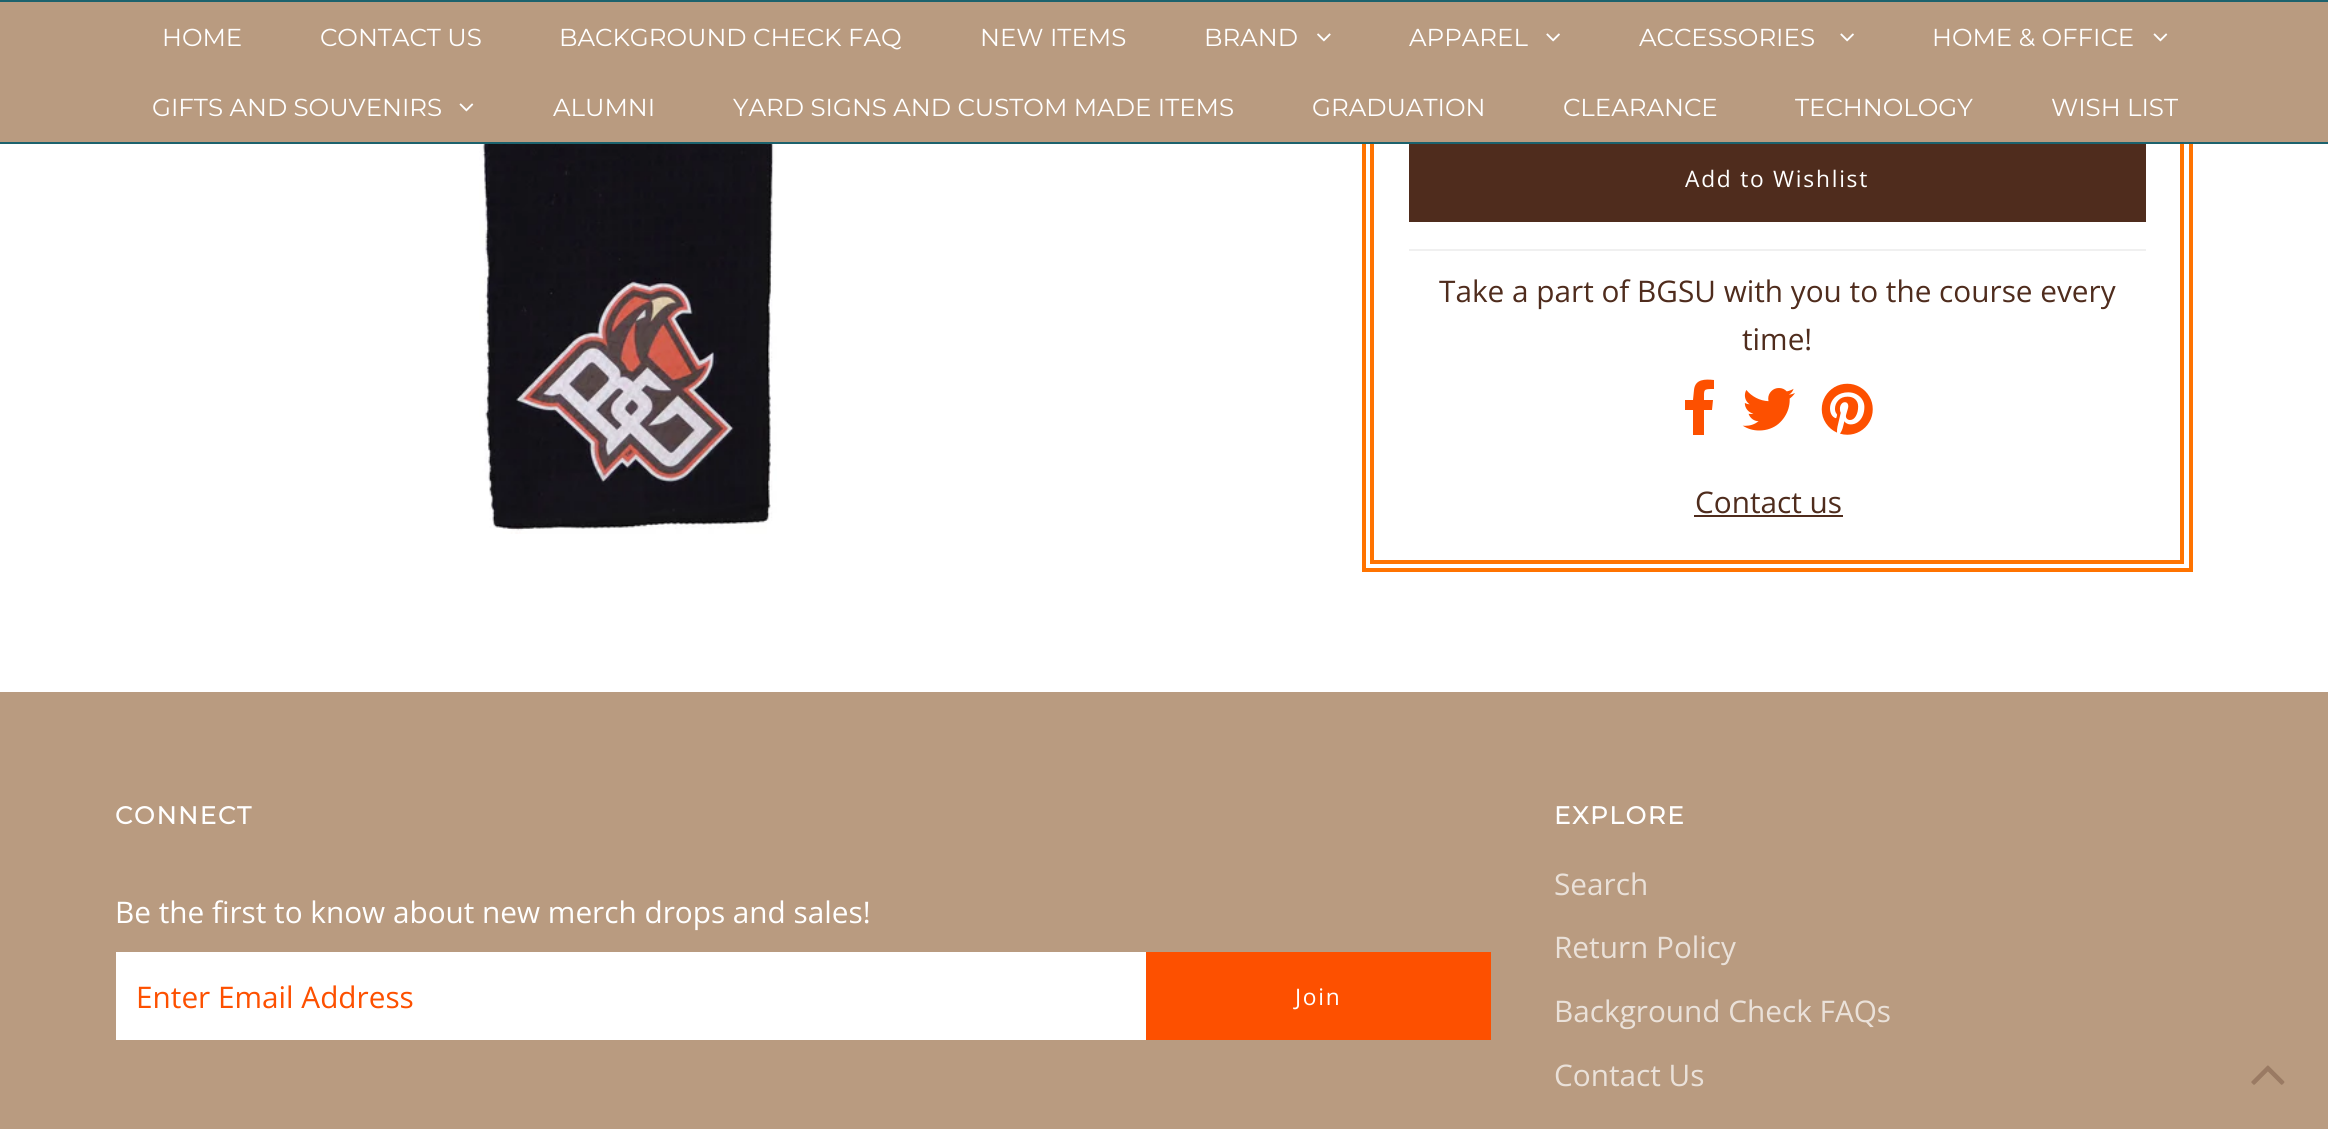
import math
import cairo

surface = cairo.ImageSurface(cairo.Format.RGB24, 2328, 1129)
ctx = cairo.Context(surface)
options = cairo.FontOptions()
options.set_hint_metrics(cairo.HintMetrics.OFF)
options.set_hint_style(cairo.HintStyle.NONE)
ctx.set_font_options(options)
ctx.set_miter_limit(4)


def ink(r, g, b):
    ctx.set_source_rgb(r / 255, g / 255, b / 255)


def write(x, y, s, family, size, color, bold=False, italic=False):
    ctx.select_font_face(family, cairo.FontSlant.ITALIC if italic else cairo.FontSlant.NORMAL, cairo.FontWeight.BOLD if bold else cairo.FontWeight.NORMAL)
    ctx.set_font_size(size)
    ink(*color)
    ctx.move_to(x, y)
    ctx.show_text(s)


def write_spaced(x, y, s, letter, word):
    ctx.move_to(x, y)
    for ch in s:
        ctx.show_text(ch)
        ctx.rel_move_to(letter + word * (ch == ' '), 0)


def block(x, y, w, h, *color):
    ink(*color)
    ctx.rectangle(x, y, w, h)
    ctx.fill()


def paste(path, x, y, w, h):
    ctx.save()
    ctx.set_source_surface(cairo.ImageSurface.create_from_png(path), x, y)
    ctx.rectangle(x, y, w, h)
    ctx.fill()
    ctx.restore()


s1 = dict(family="Montserrat", size=24.5, color=(255, 255, 255))
s2 = dict(family="Open Sans", size=29.75, color=(79, 44, 29))
s3 = dict(family="Open Sans", size=29.75, color=(255, 255, 255))
s4 = dict(family="Open Sans", size=29.75, color=(253, 80, 0))
s5 = dict(family="Open Sans", size=29.75, color=(234, 225, 217))

ink(255, 255, 255)
ctx.paint()
ctx.rectangle(1364, -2, 827, 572)
ink(255, 115, 0)
ctx.set_line_width(4)
ctx.stroke()
ctx.rectangle(1372, -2, 810, 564)
ctx.stroke()
block(0, 2, 2328, 140, 185, 155, 128)
block(0, 0, 2328, 2, 28, 98, 109)
block(0, 142, 2328, 2, 28, 98, 109)
write(162, 46, "HOME", **s1)
write(320, 46, "CONTACT US", **s1)
write(559, 46, "BACKGROUND CHECK FAQ", **s1)
write(980, 46, "NEW ITEMS", **s1)
write(1204, 46, "BRAND", **s1)
paste("pic1.png", 1317, 33, 14, 9)
write(1409, 46, "APPAREL", **s1)
paste("pic2.png", 1546, 33, 14, 9)
write(1639, 46, "ACCESSORIES", **s1)
paste("pic2.png", 1840, 33, 14, 9)
write(1932, 46, "HOME & OFFICE", **s1)
paste("pic3.png", 2153, 33, 15, 9)
write(152, 116, "GIFTS AND SOUVENIRS", **s1)
paste("pic3.png", 459, 103, 15, 9)
write(553, 116, "ALUMNI", **s1)
write(733, 116, "YARD SIGNS AND CUSTOM MADE ITEMS", **s1)
write(1312, 116, "GRADUATION", **s1)
write(1563, 116, "CLEARANCE", **s1)
write(1795, 116, "TECHNOLOGY", **s1)
write(2051, 116, "WISH LIST", **s1)
paste("pic4.png", 479, 144, 298, 390)
block(1409, 249, 737, 2, 240, 240, 240)
block(1409, 144, 737, 78, 79, 44, 29)
ctx.select_font_face("Open Sans")
ctx.set_font_size(22.75)
ink(255, 255, 255)
write_spaced(1685, 187, "Add to Wishlist", 1.75, 0)
write(1439, 302, "Take a part of BGSU with you to the course every", **s2)
write(1742, 350, "time!", **s2)
ink(253, 80, 0)
ctx.new_path()
ctx.move_to(1714, 380)
ctx.line_to(1714, 389)
ctx.curve_to(1703, 389, 1704, 389, 1704, 400)
ctx.line_to(1713, 400)
ctx.line_to(1712, 410)
ctx.line_to(1704, 410)
ctx.line_to(1704, 435)
ctx.line_to(1693, 435)
ctx.line_to(1693, 410)
ctx.line_to(1685, 410)
ctx.line_to(1685, 400)
ctx.line_to(1693, 400)
ctx.line_to(1694, 390)
ctx.curve_to(1695, 379, 1705, 379, 1714, 380)
ctx.close_path()
ctx.fill()
paste("pic5.png", 1742, 388, 53, 43)
paste("pic6.png", 1821, 383, 52, 52)
write(1695, 513, "Contact us", **s2)
block(1694, 515, 149, 2, 79, 44, 29)
block(0, 692, 2328, 437, 185, 155, 128)
ctx.select_font_face("Montserrat", cairo.FontSlant.NORMAL, cairo.FontWeight.BOLD)
ctx.set_font_size(24.5)
ink(255, 255, 255)
write_spaced(115, 824, "CONNECT", 1.75, 0)
write(115, 923, "Be the first to know about new merch drops and sales!", **s3)
block(116, 952, 1030, 88, 255, 255, 255)
write(136, 1008, "Enter Email Address", **s4)
block(1146, 952, 345, 88, 253, 80, 0)
ctx.set_font_size(22.75)
ink(255, 255, 255)
write_spaced(1295, 1005, "Join", 1.75, 0)
ctx.select_font_face("Montserrat", cairo.FontSlant.NORMAL, cairo.FontWeight.BOLD)
ctx.set_font_size(24.5)
write_spaced(1554, 824, "EXPLORE", 1.75, 0)
write(1554, 895, "Search", **s5)
write(1554, 958, "Return Policy", **s5)
write(1554, 1022, "Background Check FAQs", **s5)
write(1554, 1086, "Contact Us", **s5)
paste("pic7.png", 2251, 1065, 34, 20)
surface.write_to_png("screenshot.png")
